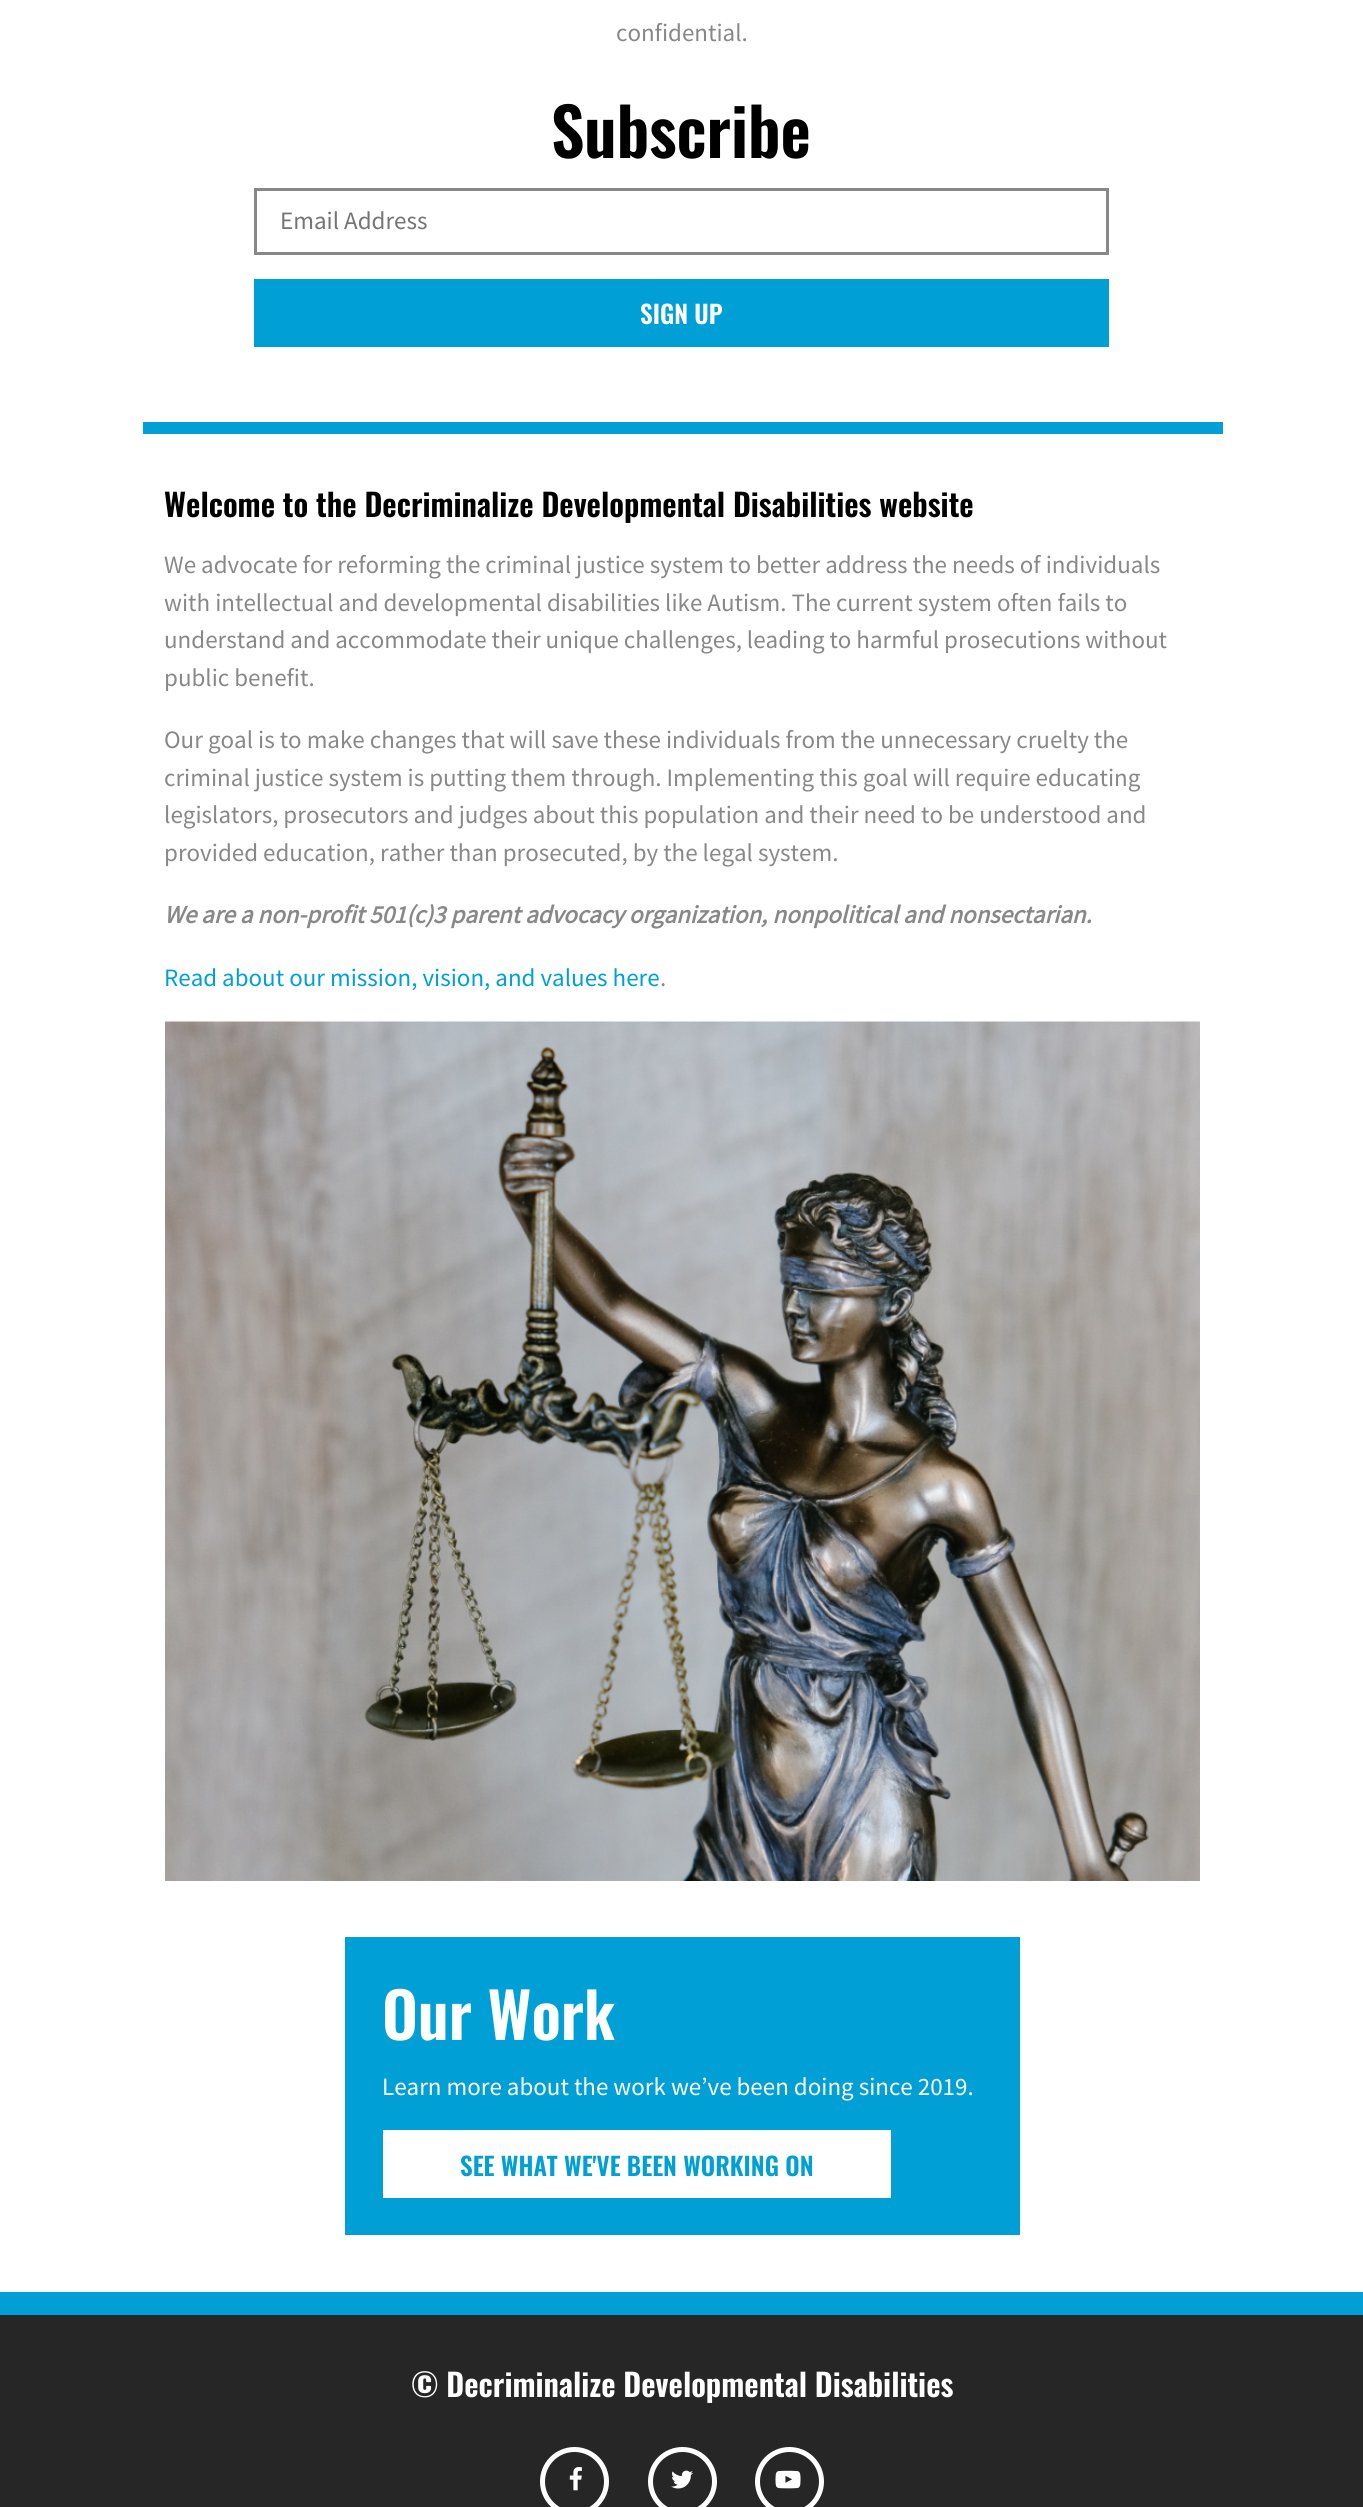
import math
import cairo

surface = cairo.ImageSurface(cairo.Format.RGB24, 1363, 2507)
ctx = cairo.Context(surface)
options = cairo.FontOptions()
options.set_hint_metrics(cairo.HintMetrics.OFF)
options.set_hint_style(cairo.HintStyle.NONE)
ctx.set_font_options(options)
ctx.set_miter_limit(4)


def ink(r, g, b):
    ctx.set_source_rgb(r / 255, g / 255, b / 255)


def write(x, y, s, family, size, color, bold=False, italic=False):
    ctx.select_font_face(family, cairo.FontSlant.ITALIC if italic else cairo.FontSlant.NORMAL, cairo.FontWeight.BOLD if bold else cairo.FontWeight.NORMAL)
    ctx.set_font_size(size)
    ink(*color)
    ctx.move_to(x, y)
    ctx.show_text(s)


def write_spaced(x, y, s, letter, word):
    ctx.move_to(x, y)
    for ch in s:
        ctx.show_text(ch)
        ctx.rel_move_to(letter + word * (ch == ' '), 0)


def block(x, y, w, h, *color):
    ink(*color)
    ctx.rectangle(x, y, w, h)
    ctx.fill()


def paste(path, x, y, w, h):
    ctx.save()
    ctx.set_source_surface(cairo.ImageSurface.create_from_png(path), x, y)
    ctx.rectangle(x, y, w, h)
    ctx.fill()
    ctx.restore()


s1 = dict(family="Source Sans Pro", size=25, color=(136, 136, 136))
s2 = dict(family="Oswald SemiBold", size=66, color=(0, 0, 0))
s3 = dict(family="Source Sans Pro", size=25, color=(117, 117, 117))
s4 = dict(family="Oswald SemiBold", size=25, color=(255, 255, 255))
s5 = dict(family="Oswald SemiBold", size=31.25, color=(0, 0, 0))
s6 = dict(family="Source Sans Pro", size=25, color=(136, 136, 136), bold=True, italic=True)
s7 = dict(family="Source Sans Pro", size=25, color=(0, 160, 214))
s8 = dict(family="Oswald SemiBold", size=62.5, color=(255, 255, 255))
s9 = dict(family="Source Sans Pro", size=25, color=(255, 255, 255))
s10 = dict(family="Oswald SemiBold", size=25, color=(0, 160, 214))
s11 = dict(family="Oswald SemiBold", size=31.25, color=(255, 255, 255))

ink(255, 255, 255)
ctx.paint()
block(143, 422, 1080, 12, 0, 160, 214)
write(616, 41, "confidential.", **s1)
write(551, 158, "Subscribe", **s2)
ctx.rectangle(255.5, 189.5, 852, 64)
ink(136, 136, 136)
ctx.set_line_width(3)
ctx.stroke()
write(280, 229, "Email Address", **s3)
block(254, 279, 855, 68, 0, 160, 214)
write(640, 324, "SIGN UP", **s4)
write(164, 517, "Welcome to the Decriminalize Developmental Disabilities website", **s5)
write(164, 573, "We advocate for reforming the criminal justice system to better address the needs of individuals", **s1)
write(164, 611, "with intellectual and developmental disabilities like Autism. The current system often fails to", **s1)
write_spaced(164, 648, "understand and accommodate their unique challenges, leading to harmful prosecutions without", 0, -0.1)
write(164, 686, "public benefit.", **s1)
write(164, 748, "Our goal is to make changes that will save these individuals from the unnecessary cruelty the", **s1)
write(164, 786, "criminal justice system is putting them through. Implementing this goal will require educating", **s1)
write(164, 823, "legislators, prosecutors and judges about this population and their need to be understood and", **s1)
write(164, 861, "provided education, rather than prosecuted, by the legal system.", **s1)
write(164, 923, "We are a non-profit 501(c)3 parent advocacy organization, nonpolitical and nonsectarian.", **s6)
write(164, 986, "Read about our mission, vision, and values here", **s7)
write(660, 986, ".", **s1)
paste("pic1.png", 165, 1021, 1035, 860)
block(345, 1937, 675, 298, 0, 160, 214)
write(382, 2040, "Our Work", **s8)
write(382, 2095, "Learn more about the work we’ve been doing since 2019.", **s9)
block(383, 2130, 508, 68, 255, 255, 255)
write(460, 2176, "SEE WHAT WE'VE BEEN WORKING ON", **s10)
block(0, 2315, 1363, 192, 38, 38, 38)
block(0, 2292, 1363, 23, 0, 160, 214)
write(411, 2397, "© Decriminalize Developmental Disabilities", **s11)
ctx.new_path()
ctx.arc(574.5, 2481.5, 32, 0, 2 * math.pi)
ctx.set_line_width(5)
ctx.stroke()
paste("pic2.png", 569, 2467, 13, 24)
ctx.arc(682.5, 2481.5, 32, 0, 2 * math.pi)
ctx.stroke()
paste("pic3.png", 671, 2470, 22, 19)
ctx.arc(789.5, 2481.5, 32, 0, 2 * math.pi)
ctx.stroke()
paste("pic4.png", 775, 2470, 26, 19)
surface.write_to_png("screenshot.png")
